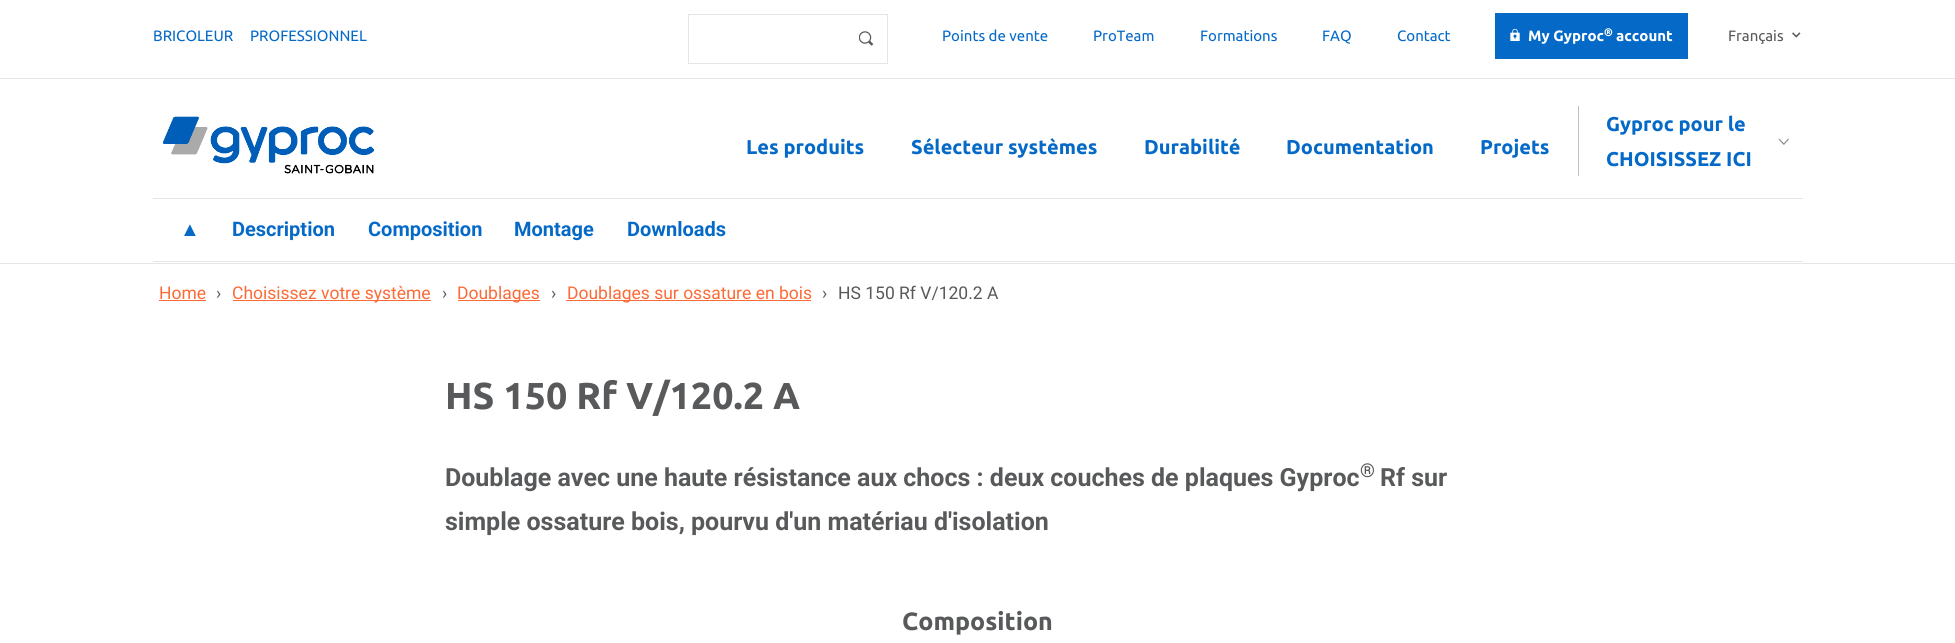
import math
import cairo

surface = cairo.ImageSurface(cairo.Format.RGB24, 1955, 643)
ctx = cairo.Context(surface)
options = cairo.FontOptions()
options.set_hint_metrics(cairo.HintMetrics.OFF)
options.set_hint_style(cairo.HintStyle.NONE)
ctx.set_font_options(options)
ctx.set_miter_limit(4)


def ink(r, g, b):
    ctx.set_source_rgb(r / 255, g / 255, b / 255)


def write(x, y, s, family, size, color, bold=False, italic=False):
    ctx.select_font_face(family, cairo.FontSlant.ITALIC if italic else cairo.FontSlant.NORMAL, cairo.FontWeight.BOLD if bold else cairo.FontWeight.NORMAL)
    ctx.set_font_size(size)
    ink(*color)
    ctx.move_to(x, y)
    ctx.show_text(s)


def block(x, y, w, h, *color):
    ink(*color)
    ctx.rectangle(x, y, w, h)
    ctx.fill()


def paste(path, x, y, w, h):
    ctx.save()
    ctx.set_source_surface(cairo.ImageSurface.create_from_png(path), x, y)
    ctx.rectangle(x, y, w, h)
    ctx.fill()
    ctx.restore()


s1 = dict(family="Ubuntu", size=15, color=(5, 105, 200))
s2 = dict(family="Ubuntu", size=15, color=(255, 255, 255), bold=True)
s3 = dict(family="Ubuntu", size=11, color=(255, 255, 255), bold=True)
s4 = dict(family="Ubuntu", size=15, color=(88, 89, 91))
s5 = dict(family="Ubuntu", size=20, color=(5, 105, 200), bold=True)
s6 = dict(family="Liberation Sans", size=20, color=(5, 105, 200), bold=True)
s7 = dict(family="Roboto", size=20, color=(5, 105, 200), bold=True)
s8 = dict(family="Roboto", size=17.5, color=(252, 106, 54))
s9 = dict(family="Roboto", size=17.5, color=(88, 89, 91))
s10 = dict(family="Ubuntu", size=37.5, color=(88, 89, 91), bold=True)
s11 = dict(family="Roboto", size=25, color=(88, 89, 91), bold=True)
s12 = dict(family="Roboto", size=19, color=(88, 89, 91), bold=True)
s13 = dict(family="Ubuntu", size=25, color=(88, 89, 91), bold=True)

ink(255, 255, 255)
ctx.paint()
block(0, 78, 1955, 1, 229, 229, 230)
write(153, 41, "BRICOLEUR", **s1)
write(250, 41, "PROFESSIONNEL", **s1)
ctx.rectangle(688.5, 14.5, 199, 49)
ink(229, 229, 230)
ctx.set_line_width(1)
ctx.stroke()
paste("pic1.png", 859, 31, 15, 15)
write(942, 41, "Points de vente", **s1)
write(1093, 41, "ProTeam", **s1)
write(1200, 41, "Formations", **s1)
write(1322, 41, "FAQ", **s1)
write(1397, 41, "Contact", **s1)
block(1495, 13, 193, 46, 5, 105, 200)
paste("pic2.png", 1510, 29, 10, 12)
write(1528, 41, "My Gyproc", **s2)
write(1604, 36, "®", **s3)
write(1616, 41, "account", **s2)
write(1728, 41, "Français", **s4)
paste("pic3.png", 1792, 32, 9, 6)
paste("pic4.png", 162, 116, 213, 58)
write(746, 154, "Les produits", **s5)
write(911, 154, "Sélecteur systèmes", **s5)
write(1144, 154, "Durabilité", **s5)
write(1286, 154, "Documentation", **s5)
write(1480, 154, "Projets", **s5)
block(1578, 106, 1, 70, 190, 191, 192)
write(1606, 131, "Gyproc pour le", **s5)
write(1606, 166, "CHOISISSEZ ICI", **s5)
paste("pic5.png", 1778, 138, 11, 7)
block(153, 198, 1650, 1, 229, 229, 230)
block(153, 261, 1650, 1, 229, 229, 230)
write(180, 236, "▲", **s6)
write(232, 236, "Description", **s7)
write(368, 236, "Composition", **s7)
write(514, 236, "Montage", **s7)
write(627, 236, "Downloads", **s7)
block(0, 263, 1955, 1, 229, 229, 230)
write(159, 299, "Home", **s8)
block(159, 300, 47, 1, 252, 106, 54)
write(216, 299, "›", **s9)
block(233, 300, 198, 1, 252, 106, 54)
write(232, 299, "Choisissez votre système", **s8)
write(442, 299, "›", **s9)
block(458, 300, 82, 1, 252, 106, 54)
write(457, 299, "Doublages", **s8)
write(551, 299, "›", **s9)
block(566, 300, 245, 1, 252, 106, 54)
write(567, 299, "Doublages sur ossature en bois", **s8)
write(822, 299, "›", **s9)
write(838, 299, "HS 150 Rf V/120.2 A", **s9)
write(445, 409, "HS 150 Rf V/120.2 A", **s10)
write(445, 486, "Doublage avec une haute résistance aux chocs : deux couches de plaques Gyproc", **s11)
write(1360, 477, "®", **s12)
write(1380, 486, "Rf sur", **s11)
write(445, 530, "simple ossature bois, pourvu d'un matériau d'isolation", **s11)
write(902, 630, "Composition", **s13)
surface.write_to_png("screenshot.png")
